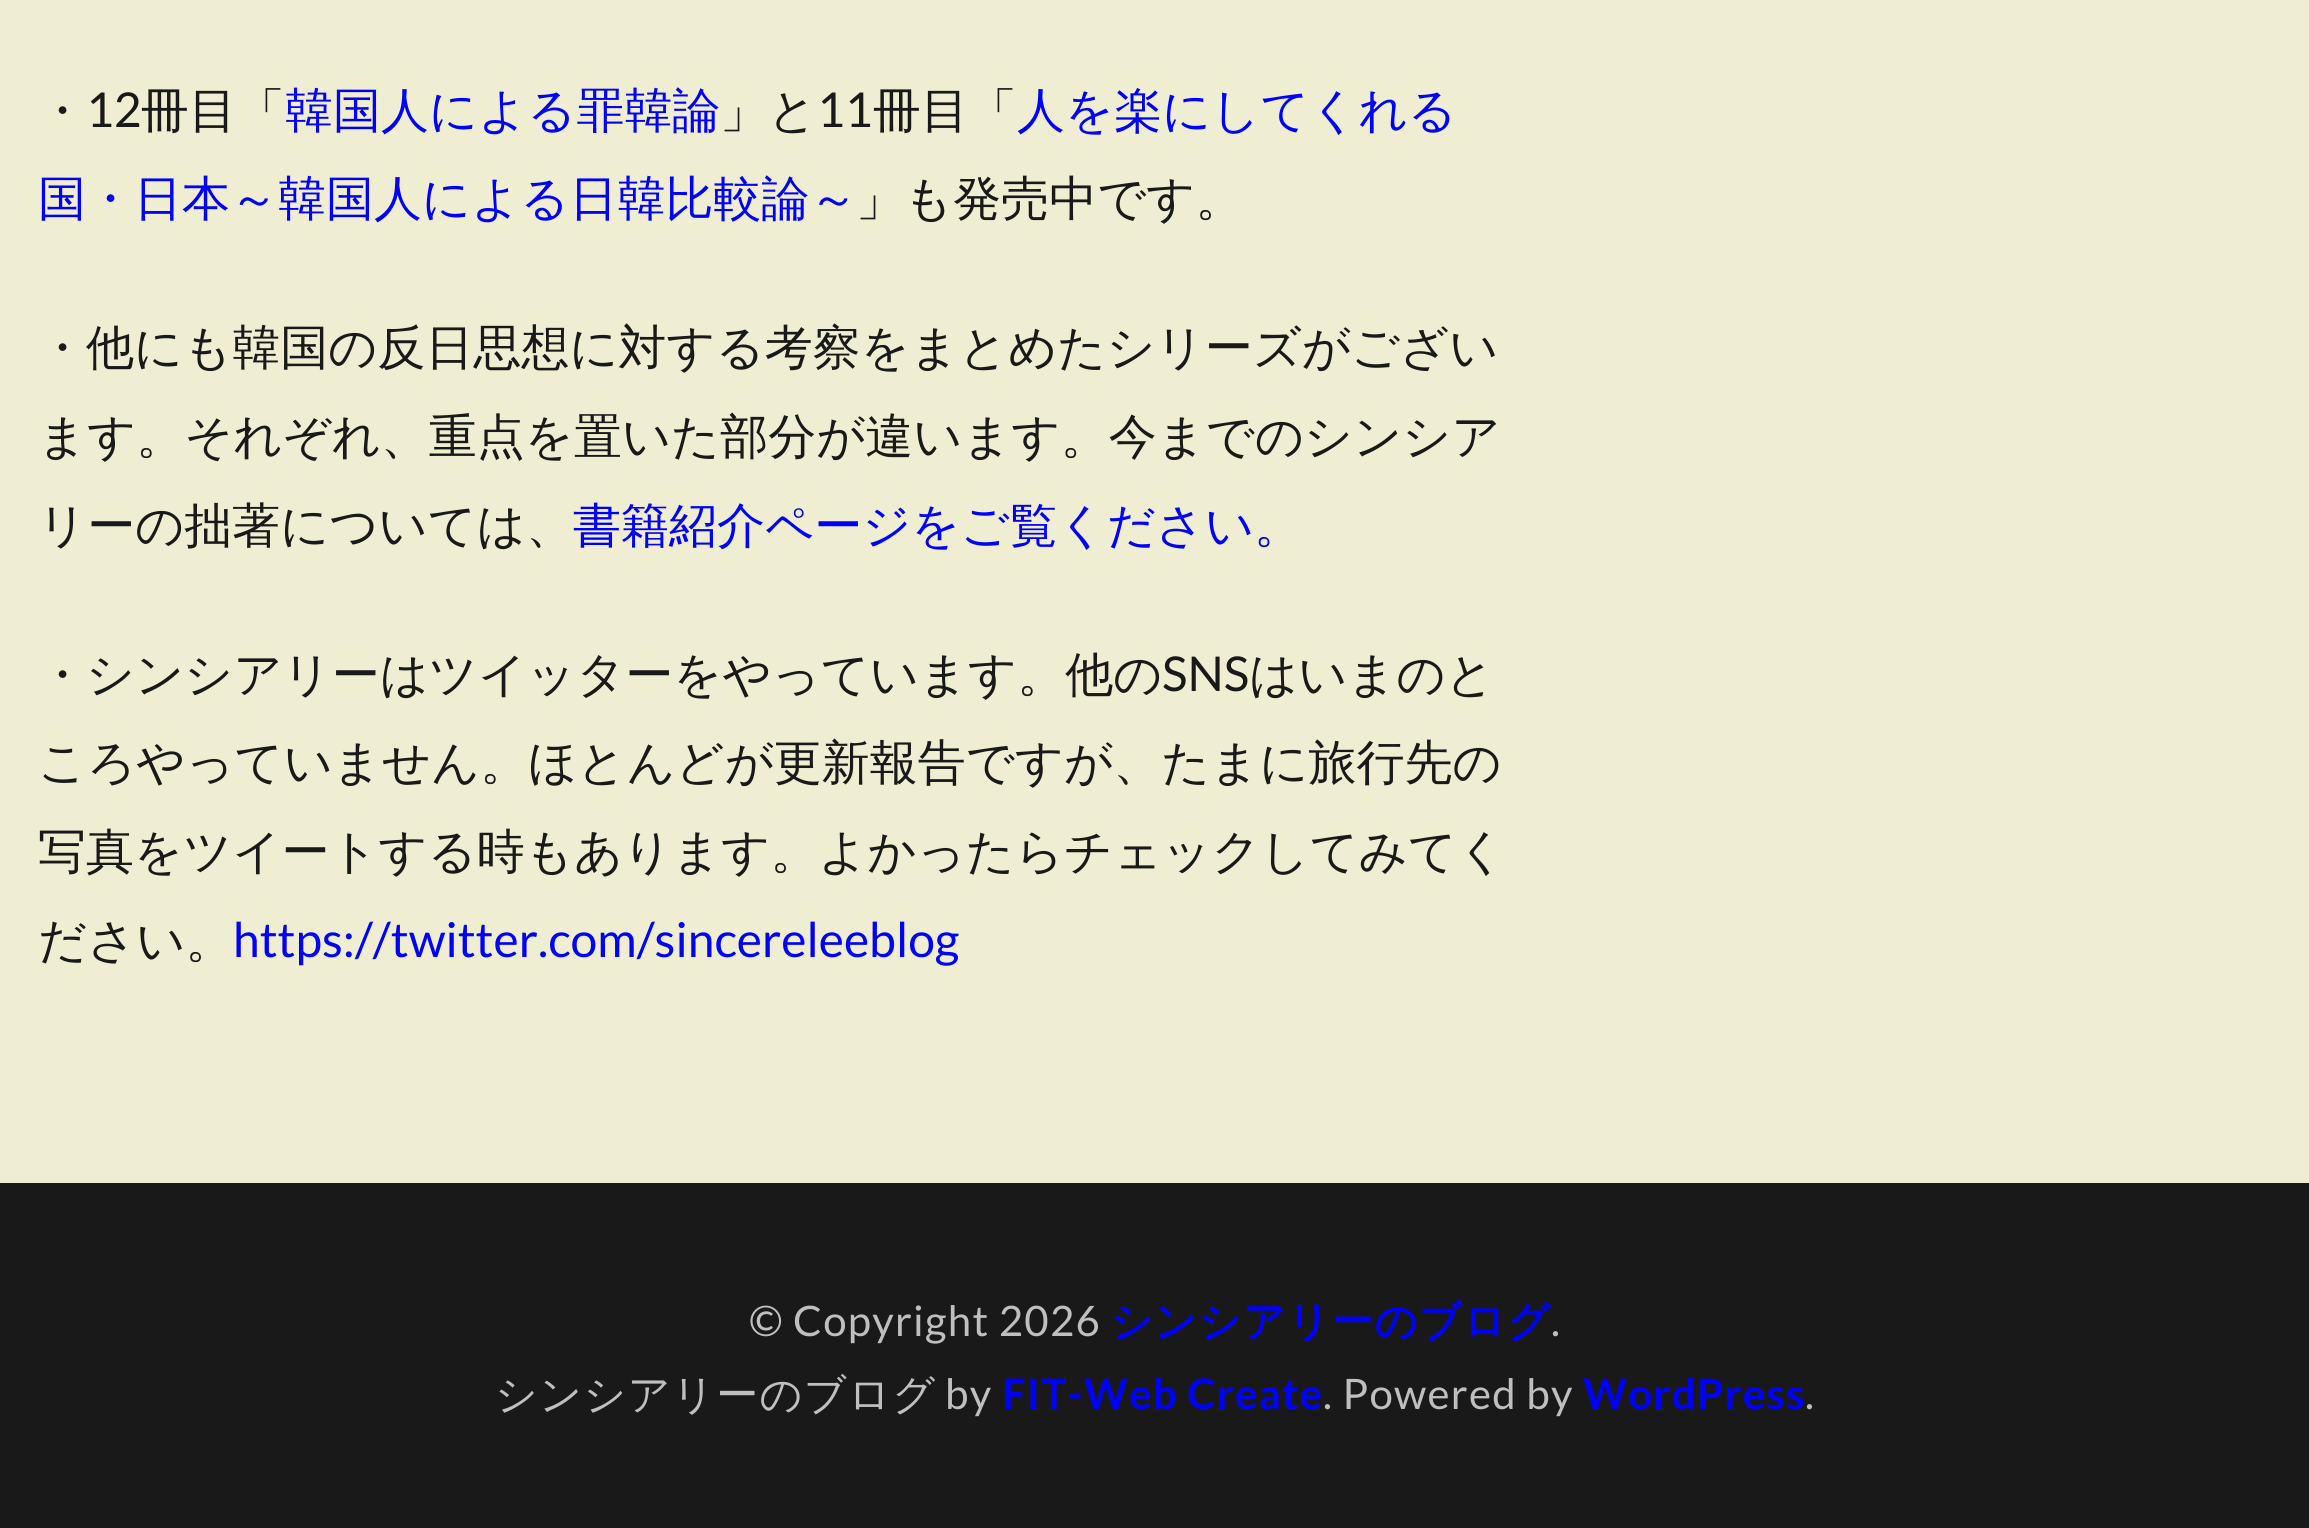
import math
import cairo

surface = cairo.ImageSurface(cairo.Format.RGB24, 2309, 1528)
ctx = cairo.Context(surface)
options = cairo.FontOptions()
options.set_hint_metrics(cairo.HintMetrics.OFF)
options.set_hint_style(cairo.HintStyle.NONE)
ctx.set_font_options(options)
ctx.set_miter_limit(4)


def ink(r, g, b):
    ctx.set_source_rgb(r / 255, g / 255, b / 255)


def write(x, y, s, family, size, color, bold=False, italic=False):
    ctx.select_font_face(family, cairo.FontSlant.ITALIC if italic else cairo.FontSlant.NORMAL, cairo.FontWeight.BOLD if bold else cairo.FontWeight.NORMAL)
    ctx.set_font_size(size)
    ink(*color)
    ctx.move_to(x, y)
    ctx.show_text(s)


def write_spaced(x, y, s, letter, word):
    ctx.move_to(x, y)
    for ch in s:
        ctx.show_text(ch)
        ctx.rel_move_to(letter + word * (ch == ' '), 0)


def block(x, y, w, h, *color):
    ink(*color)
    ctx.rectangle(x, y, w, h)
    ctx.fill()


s1 = dict(family="WenQuanYi Zen Hei Medium", size=48, color=(25, 25, 25))
s2 = dict(family="Lato", size=48, color=(25, 25, 25))
s3 = dict(family="WenQuanYi Zen Hei Medium", size=48, color=(0, 0, 255))
s4 = dict(family="Lato", size=48, color=(0, 0, 255))

ink(239, 237, 210)
ctx.paint()
write(38, 127, "・", **s1)
write(86, 127, "12", **s2)
write(141, 127, "冊目「", **s1)
write(285, 127, "韓国人による罪韓論", **s3)
write(720, 127, "」と", **s1)
write(817, 127, "11", **s2)
write(873, 127, "冊目「", **s1)
write(1017, 127, "人を楽にしてくれる", **s3)
write(38, 215, "国・日本～韓国人による日韓比較論～", **s3)
write(856, 215, "」も発売中です。", **s1)
write(38, 364, "・他にも韓国の反日思想に対する考察をまとめたシリーズがござい", **s1)
write(38, 453, "ます。それぞれ、重点を置いた部分が違います。今までのシンシア", **s1)
write(38, 542, "リーの拙著については、", **s1)
write(573, 542, "書籍紹介ページをご覧ください。", **s3)
write(38, 691, "・シンシアリーはツイッターをやっています。他の", **s1)
write(1162, 691, "SNS", **s2)
write(1249, 691, "はいまのと", **s1)
write(38, 779, "ころやっていません。ほとんどが更新報告ですが、たまに旅行先の", **s1)
write(38, 868, "写真をツイートする時もあります。よかったらチェックしてみてく", **s1)
write(38, 957, "ださい。", **s1)
write(233, 957, "https://twitter.com/sincereleeblog", **s4)
block(0, 1183, 2309, 345, 25, 25, 25)
ctx.set_font_size(42)
ink(191, 191, 191)
write_spaced(749, 1336, "© Copyright 2026", 1.25, 0)
ctx.select_font_face("WenQuanYi Zen Hei", cairo.FontSlant.NORMAL, cairo.FontWeight.BOLD)
ink(0, 0, 255)
write_spaced(1110, 1336, "シンシアリーのブログ", 1.25, 0)
ctx.select_font_face("Lato")
ink(191, 191, 191)
write_spaced(1551, 1336, ".", 1.25, 0)
ctx.select_font_face("WenQuanYi Zen Hei Medium")
write_spaced(495, 1409, "シンシアリーのブログ", 1.25, 0)
ctx.select_font_face("Lato")
write_spaced(945, 1409, "by", 1.25, 0)
ctx.select_font_face("Lato", cairo.FontSlant.NORMAL, cairo.FontWeight.BOLD)
ink(0, 0, 255)
write_spaced(1002, 1409, "FIT-Web Create", 1.25, 0)
ctx.select_font_face("Lato")
ink(191, 191, 191)
write_spaced(1323, 1409, ". Powered by", 1.25, 0)
ctx.select_font_face("Lato", cairo.FontSlant.NORMAL, cairo.FontWeight.BOLD)
ink(0, 0, 255)
write_spaced(1583, 1409, "WordPress", 1.25, 0)
ctx.select_font_face("Lato")
ink(191, 191, 191)
write_spaced(1805, 1409, ".", 1.25, 0)
surface.write_to_png("screenshot.png")
